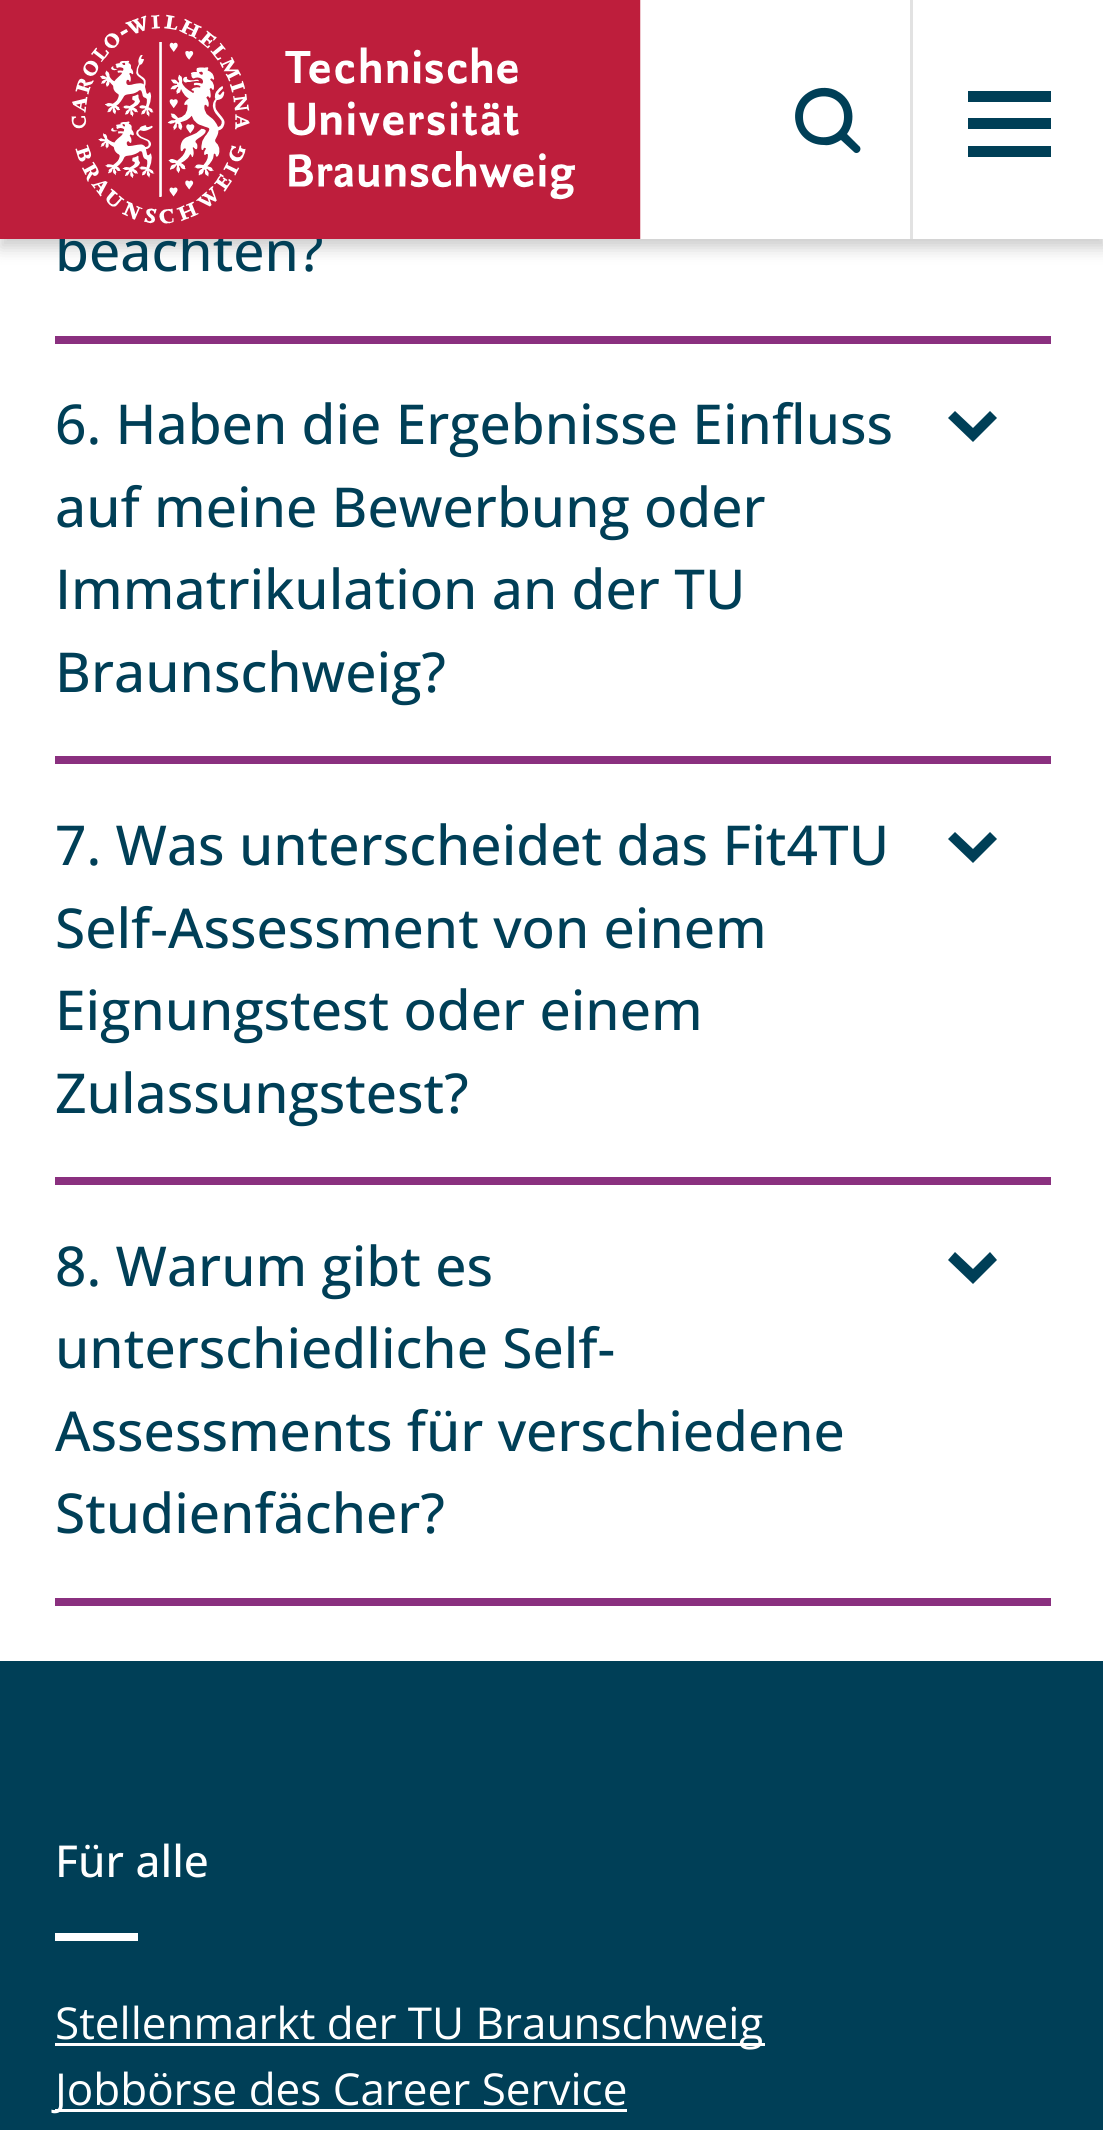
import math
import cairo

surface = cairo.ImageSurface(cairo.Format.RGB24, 1103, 2130)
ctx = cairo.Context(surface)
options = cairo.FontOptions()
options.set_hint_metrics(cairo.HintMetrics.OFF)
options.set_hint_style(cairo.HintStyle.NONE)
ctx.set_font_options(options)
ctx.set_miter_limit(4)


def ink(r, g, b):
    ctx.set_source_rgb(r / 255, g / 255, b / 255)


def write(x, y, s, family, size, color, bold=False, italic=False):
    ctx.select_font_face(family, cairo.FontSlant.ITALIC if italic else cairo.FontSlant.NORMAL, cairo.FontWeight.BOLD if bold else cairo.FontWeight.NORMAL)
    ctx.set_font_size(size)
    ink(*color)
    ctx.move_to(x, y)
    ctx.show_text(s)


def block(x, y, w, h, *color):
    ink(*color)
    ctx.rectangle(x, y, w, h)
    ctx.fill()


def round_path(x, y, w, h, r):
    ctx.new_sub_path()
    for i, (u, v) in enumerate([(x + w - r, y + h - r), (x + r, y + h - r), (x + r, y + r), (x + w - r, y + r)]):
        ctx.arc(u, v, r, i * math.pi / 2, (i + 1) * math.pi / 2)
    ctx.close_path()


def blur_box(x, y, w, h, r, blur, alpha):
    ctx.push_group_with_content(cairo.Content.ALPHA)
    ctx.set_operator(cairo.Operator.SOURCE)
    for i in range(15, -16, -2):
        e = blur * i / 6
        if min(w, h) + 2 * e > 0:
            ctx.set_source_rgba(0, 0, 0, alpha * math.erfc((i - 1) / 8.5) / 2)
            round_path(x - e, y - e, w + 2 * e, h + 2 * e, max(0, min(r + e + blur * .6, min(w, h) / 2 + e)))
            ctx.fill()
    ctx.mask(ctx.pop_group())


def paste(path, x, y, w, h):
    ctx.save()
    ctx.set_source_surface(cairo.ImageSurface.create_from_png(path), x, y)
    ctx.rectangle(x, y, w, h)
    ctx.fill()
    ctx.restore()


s1 = dict(family="Open Sans Medium", size=55, color=(0, 63, 87))
s2 = dict(family="Open Sans Medium", size=44, color=(255, 255, 255))
s3 = dict(family="Open Sans", size=44, color=(255, 255, 255))

ink(255, 255, 255)
ctx.paint()
ink(0, 0, 0)
blur_box(0, 8, 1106, 240, 0, 8, 0.2)
block(640, 0, 463, 239, 255, 255, 255)
write(55, 271, "beachten?", **s1)
paste("pic1.png", 0, 0, 641, 239)
ctx.new_path()
ctx.move_to(803, 117)
ctx.curve_to(803, 90, 844, 89, 844, 117)
ctx.curve_to(844, 144, 803, 144, 803, 117)
ctx.close_path()
ctx.move_to(854, 152)
ctx.curve_to(857, 155, 862, 151, 860, 147)
ctx.line_to(847, 134)
ctx.curve_to(857, 120, 853, 99, 837, 91)
ctx.curve_to(830, 87, 820, 87, 813, 90)
ctx.curve_to(784, 102, 792, 145, 824, 145)
ctx.curve_to(830, 146, 836, 143, 841, 140)
ctx.close_path()
ctx.fill()
block(910, 0, 3, 239, 226, 226, 226)
block(968, 118, 83, 11, 0, 63, 87)
block(968, 91, 83, 11, 0, 63, 87)
block(968, 146, 83, 11, 0, 63, 87)
block(55, 336, 996, 8, 138, 48, 127)
block(55, 756, 996, 8, 138, 48, 127)
write(55, 444, "6. Haben die Ergebnisse Einfluss", **s1)
ctx.new_path()
ctx.move_to(973, 442)
ctx.line_to(948, 418)
ctx.line_to(955, 411)
ctx.line_to(973, 428)
ctx.line_to(990, 411)
ctx.line_to(997, 418)
ctx.close_path()
ctx.fill()
write(55, 527, "auf meine Bewerbung oder", **s1)
write(55, 609, "Immatrikulation an der TU", **s1)
write(55, 692, "Braunschweig?", **s1)
block(55, 1177, 996, 8, 138, 48, 127)
write(55, 865, "7. Was unterscheidet das Fit4TU", **s1)
ctx.new_path()
ctx.move_to(973, 863)
ctx.line_to(948, 839)
ctx.line_to(955, 832)
ctx.line_to(973, 849)
ctx.line_to(990, 832)
ctx.line_to(997, 839)
ctx.close_path()
ctx.fill()
write(55, 948, "Self-Assessment von einem", **s1)
write(55, 1030, "Eignungstest oder einem", **s1)
write(55, 1113, "Zulassungstest?", **s1)
block(55, 1598, 996, 8, 138, 48, 127)
write(55, 1286, "8. Warum gibt es", **s1)
ctx.new_path()
ctx.move_to(973, 1284)
ctx.line_to(948, 1260)
ctx.line_to(955, 1252)
ctx.line_to(973, 1269)
ctx.line_to(990, 1252)
ctx.line_to(997, 1260)
ctx.close_path()
ctx.fill()
write(55, 1368, "unterschiedliche Self-", **s1)
write(55, 1451, "Assessments für verschiedene", **s1)
write(55, 1533, "Studienfächer?", **s1)
block(0, 1661, 1103, 469, 0, 63, 87)
write(55, 1877, "Für alle", **s2)
block(55, 1933, 83, 8, 255, 255, 255)
block(55, 2043, 710, 3, 255, 255, 255)
write(55, 2039, "Stellenmarkt der TU Braunschweig", **s3)
block(55, 2109, 572, 3, 255, 255, 255)
write(55, 2105, "Jobbörse des Career Service", **s3)
surface.write_to_png("screenshot.png")
